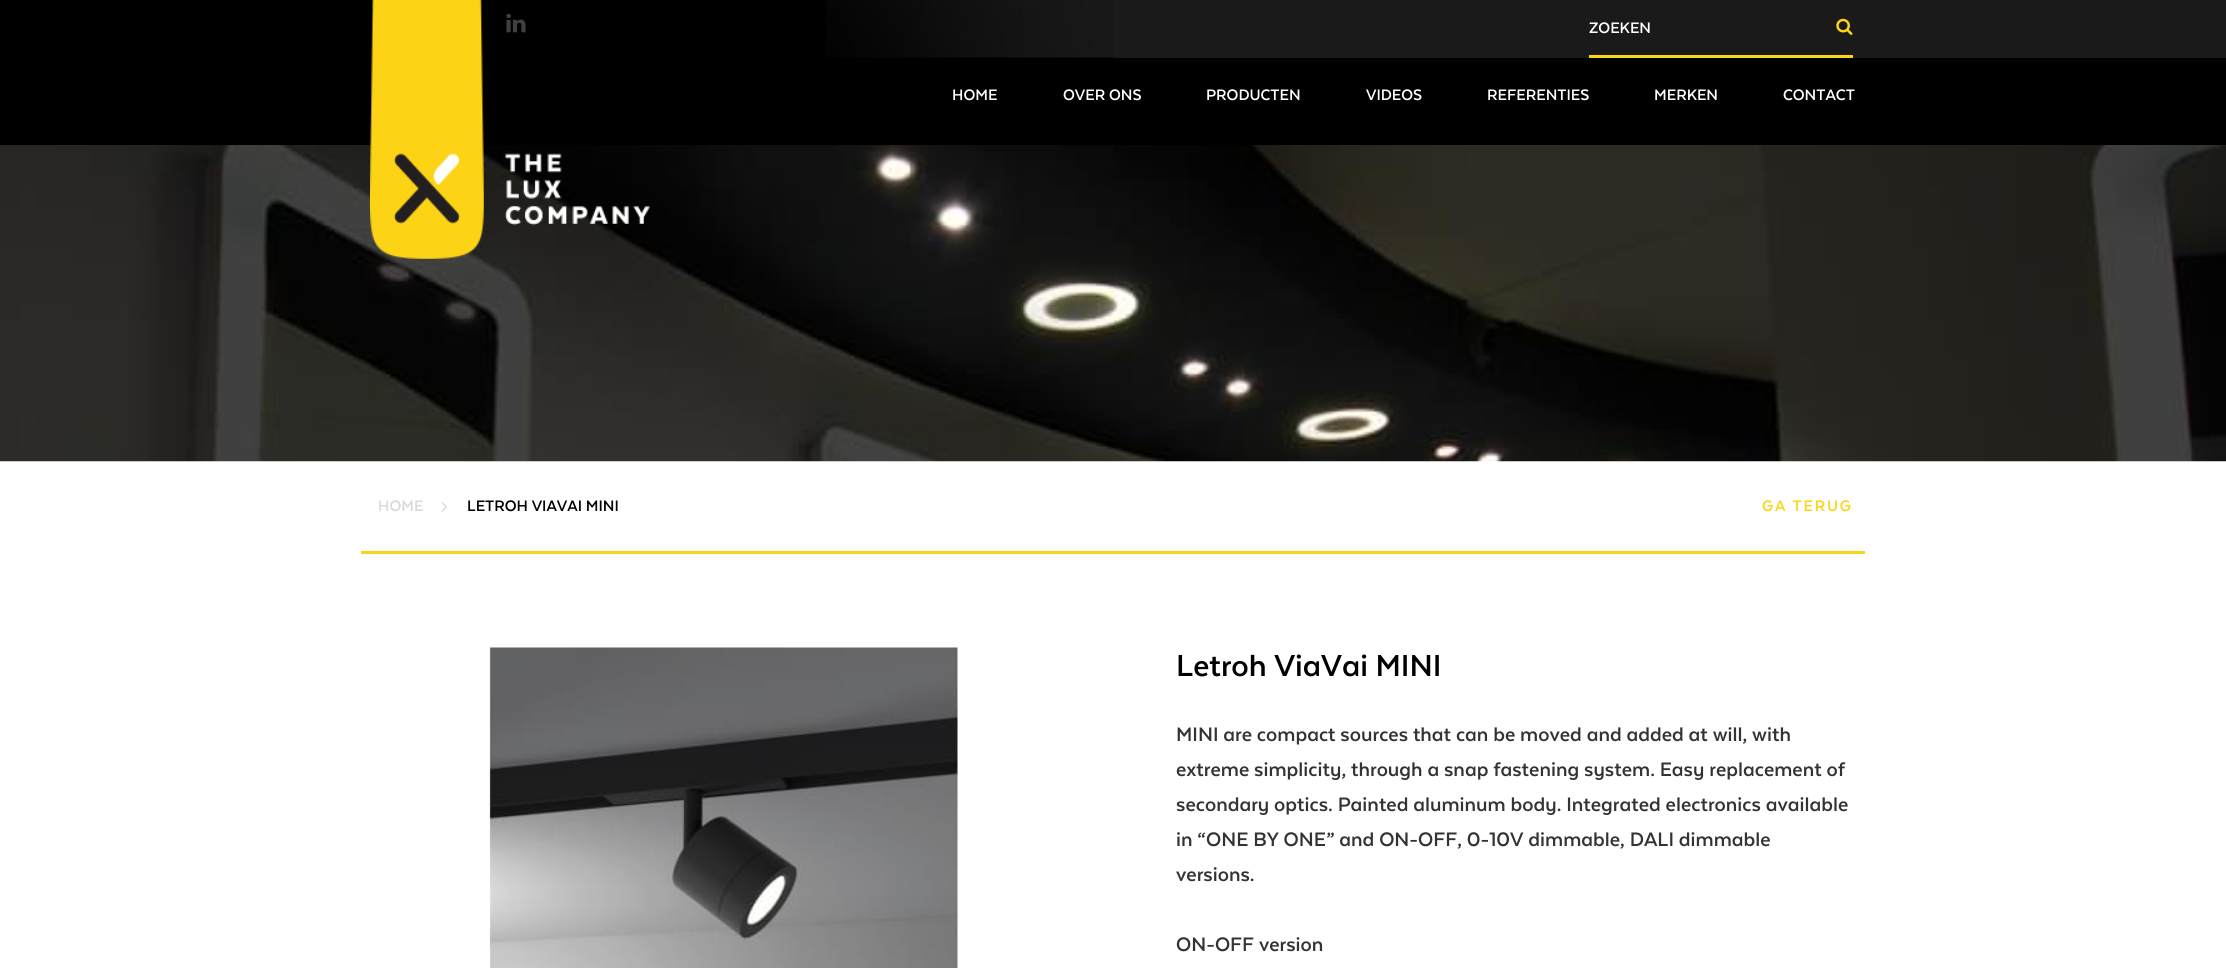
import math
import cairo

surface = cairo.ImageSurface(cairo.Format.RGB24, 2226, 968)
ctx = cairo.Context(surface)
options = cairo.FontOptions()
options.set_hint_metrics(cairo.HintMetrics.OFF)
options.set_hint_style(cairo.HintStyle.NONE)
ctx.set_font_options(options)
ctx.set_miter_limit(4)


def ink(r, g, b):
    ctx.set_source_rgb(r / 255, g / 255, b / 255)


def write(x, y, s, family, size, color, bold=False, italic=False):
    ctx.select_font_face(family, cairo.FontSlant.ITALIC if italic else cairo.FontSlant.NORMAL, cairo.FontWeight.BOLD if bold else cairo.FontWeight.NORMAL)
    ctx.set_font_size(size)
    ink(*color)
    ctx.move_to(x, y)
    ctx.show_text(s)


def write_spaced(x, y, s, letter, word):
    ctx.move_to(x, y)
    for ch in s:
        ctx.show_text(ch)
        ctx.rel_move_to(letter + word * (ch == ' '), 0)


def block(x, y, w, h, *color):
    ink(*color)
    ctx.rectangle(x, y, w, h)
    ctx.fill()


def paste(path, x, y, w, h):
    ctx.save()
    ctx.set_source_surface(cairo.ImageSurface.create_from_png(path), x, y)
    ctx.rectangle(x, y, w, h)
    ctx.fill()
    ctx.restore()


s1 = dict(family="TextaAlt", size=17.5, color=(255, 255, 255), bold=True)
s2 = dict(family="TextaAlt", size=17.5, color=(217, 217, 217), bold=True)
s3 = dict(family="TextaAlt", size=17.5, color=(0, 0, 0), bold=True)
s4 = dict(family="TextaAlt", size=35, color=(0, 0, 0), bold=True)
s5 = dict(family="TextaAlt", size=22.5, color=(51, 51, 51), bold=True)

ink(255, 255, 255)
ctx.paint()
block(0, 0, 2226, 145, 0, 0, 0)
paste("pic1.png", 826, 0, 288, 58)
block(1114, 0, 1112, 58, 26, 26, 26)
paste("pic5.png", 0, 145, 2226, 317)
paste("pic4.png", 370, 0, 280, 259)
paste("pic2.png", 506, 13, 20, 20)
block(1589, 55, 264, 3, 253, 211, 22)
write(1589, 33, "ZOEKEN", **s1)
paste("pic3.png", 1836, 18, 17, 17)
write(952, 100, "HOME", **s1)
write(1063, 100, "OVER ONS", **s1)
write(1206, 100, "PRODUCTEN", **s1)
write(1366, 100, "VIDEOS", **s1)
write(1487, 100, "REFERENTIES", **s1)
write(1654, 100, "MERKEN", **s1)
write(1783, 100, "CONTACT", **s1)
block(361, 551, 1504, 3, 253, 211, 22)
write(378, 511, "HOME", **s2)
paste("pic6.png", 441, 502, 6, 10)
write(467, 511, "LETROH VIAVAI MINI", **s3)
ink(253, 211, 22)
write_spaced(1762, 511, "GA TERUG", 1.75, 0)
paste("pic7.png", 489, 647, 469, 321)
write(1176, 676, "Letroh ViaVai MINI", **s4)
write(1176, 741, "MINI are compact sources that can be moved and added at will, with", **s5)
write(1176, 776, "extreme simplicity, through a snap fastening system. Easy replacement of", **s5)
write(1176, 811, "secondary optics. Painted aluminum body. Integrated electronics available", **s5)
write(1176, 846, "in “ONE BY ONE” and ON-OFF, 0-10V dimmable, DALI dimmable", **s5)
write(1176, 881, "versions.", **s5)
write(1176, 951, "ON-OFF version", **s5)
surface.write_to_png("screenshot.png")
